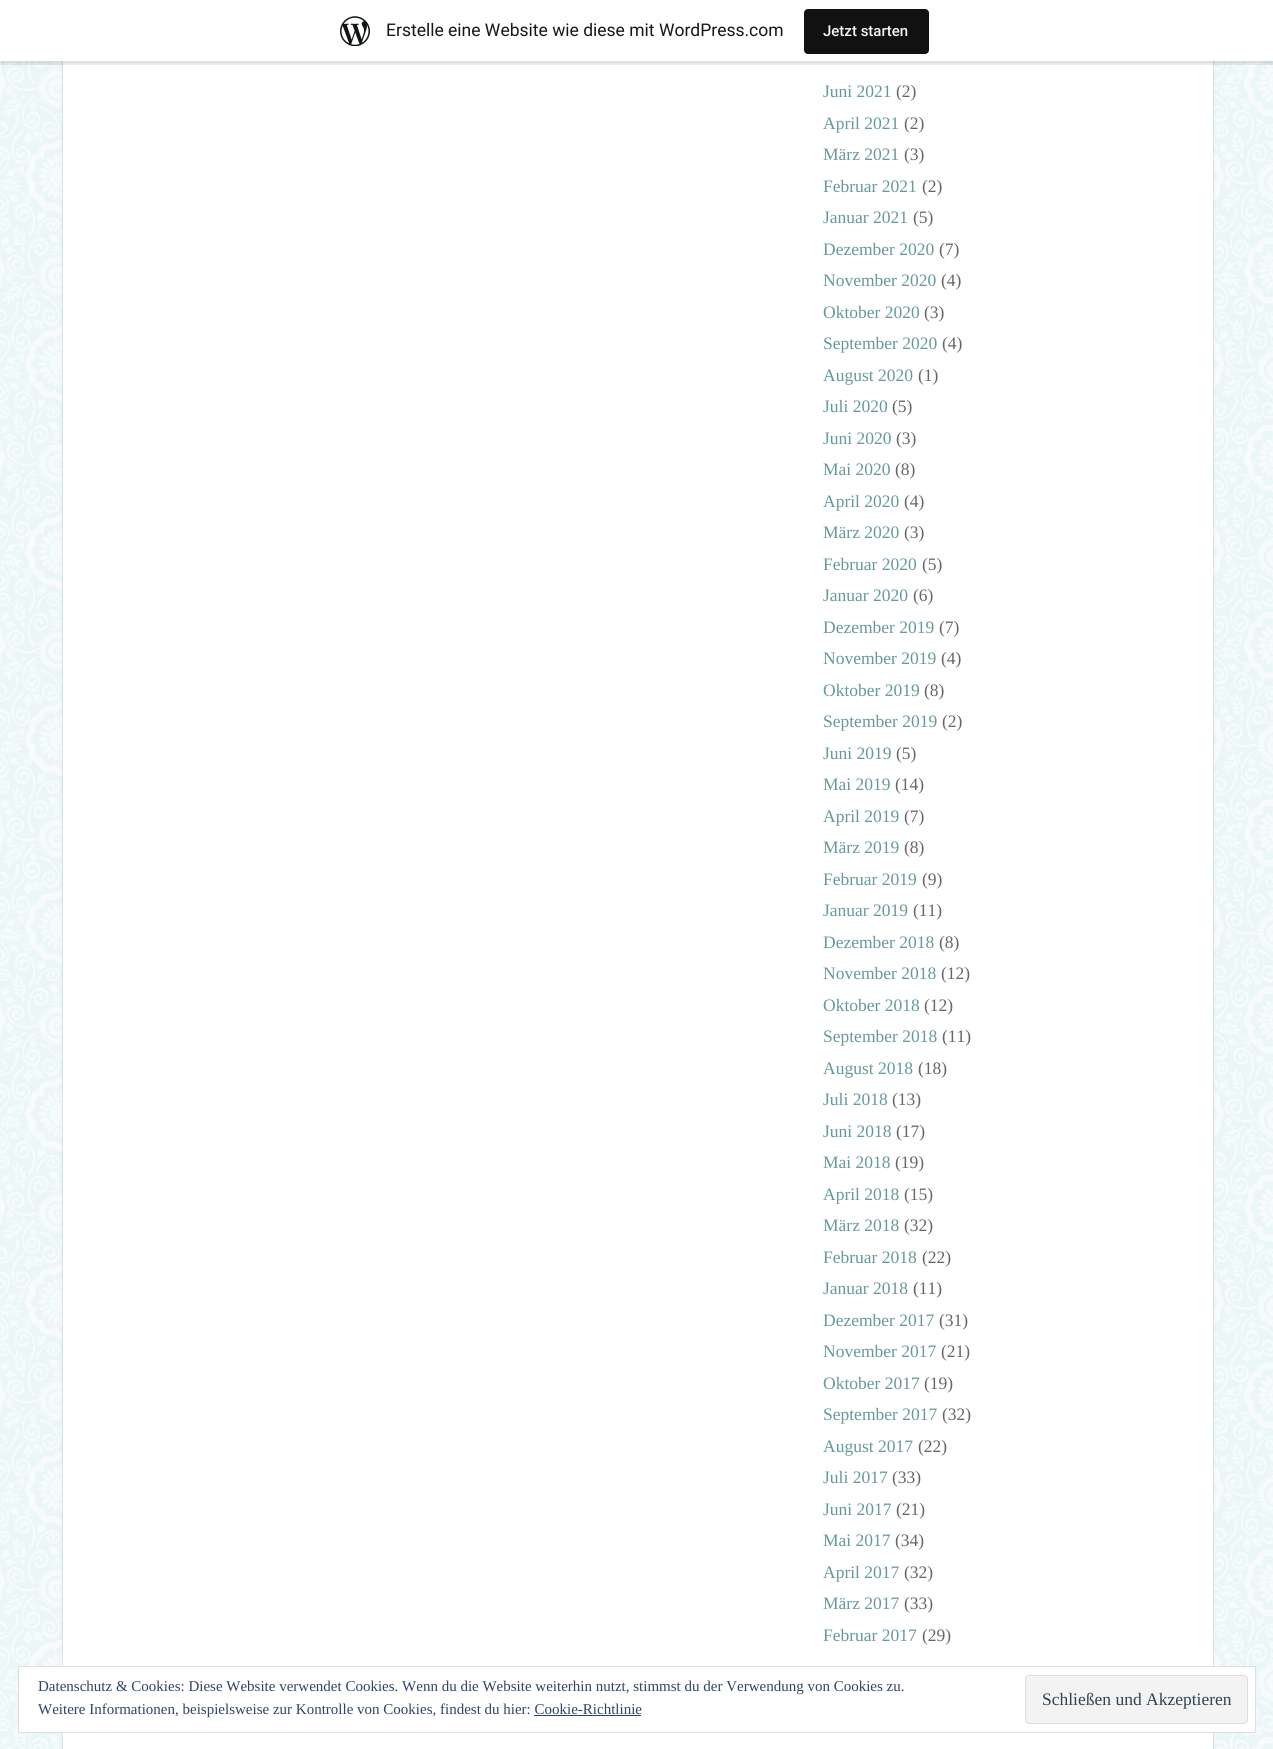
import math
import cairo

surface = cairo.ImageSurface(cairo.Format.RGB24, 1273, 1749)
ctx = cairo.Context(surface)
options = cairo.FontOptions()
options.set_hint_metrics(cairo.HintMetrics.OFF)
options.set_hint_style(cairo.HintStyle.NONE)
ctx.set_font_options(options)
ctx.set_miter_limit(4)


def ink(r, g, b):
    ctx.set_source_rgb(r / 255, g / 255, b / 255)


def write(x, y, s, family, size, color, bold=False, italic=False):
    ctx.select_font_face(family, cairo.FontSlant.ITALIC if italic else cairo.FontSlant.NORMAL, cairo.FontWeight.BOLD if bold else cairo.FontWeight.NORMAL)
    ctx.set_font_size(size)
    ink(*color)
    ctx.move_to(x, y)
    ctx.show_text(s)


def block(x, y, w, h, *color):
    ink(*color)
    ctx.rectangle(x, y, w, h)
    ctx.fill()


def round_path(x, y, w, h, r):
    ctx.new_sub_path()
    for i, (u, v) in enumerate([(x + w - r, y + h - r), (x + r, y + h - r), (x + r, y + r), (x + w - r, y + r)]):
        ctx.arc(u, v, r, i * math.pi / 2, (i + 1) * math.pi / 2)
    ctx.close_path()


def blur_box(x, y, w, h, r, blur, alpha):
    ctx.push_group_with_content(cairo.Content.ALPHA)
    ctx.set_operator(cairo.Operator.SOURCE)
    for i in range(15, -16, -2):
        e = blur * i / 6
        if min(w, h) + 2 * e > 0:
            ctx.set_source_rgba(0, 0, 0, alpha * math.erfc((i - 1) / 8.5) / 2)
            round_path(x - e, y - e, w + 2 * e, h + 2 * e, max(0, min(r + e + blur * .6, min(w, h) / 2 + e)))
            ctx.fill()
    ctx.mask(ctx.pop_group())


def paste(path, x, y, w, h):
    ctx.save()
    ctx.set_source_surface(cairo.ImageSurface.create_from_png(path), x, y)
    ctx.rectangle(x, y, w, h)
    ctx.fill()
    ctx.restore()


s1 = dict(family="Roboto", size=17.5, color=(23, 23, 23))
s2 = dict(family="Roboto Medium", size=15, color=(246, 247, 247))
s3 = dict(family="Liberation Serif", size=17.5, color=(102, 153, 153))
s4 = dict(family="Liberation Serif", size=17.5, color=(102, 102, 102))
s5 = dict(family="Liberation Serif", size=15, color=(46, 68, 103))
s6 = dict(family="Liberation Serif", size=17.5, color=(46, 68, 83))

ink(234, 246, 247)
ctx.paint()
paste("pic1.png", 0, 61, 1273, 1688)
ink(187, 187, 187)
blur_box(63, -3, 1150, 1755, 0, 1, 1)
block(63, 61, 1150, 1688, 255, 255, 255)
ink(0, 0, 0)
blur_box(0, 1, 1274, 62, 0, 1, 0.05)
ctx.set_source_rgba(0, 0, 0, 0.08)
ctx.new_path()
ctx.move_to(1, 61)
ctx.line_to(1, 65)
ctx.line_to(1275, 65)
ctx.line_to(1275, 4)
ctx.line_to(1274, 4)
ctx.line_to(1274, 61)
ctx.close_path()
ctx.fill()
block(0, 0, 1273, 61, 255, 255, 255)
paste("pic2.png", 340, 16, 30, 30)
write(386, 36, "Erstelle eine Website wie diese mit WordPress.com", **s1)
ink(17, 17, 17)
round_path(804, 9, 125, 45, 4)
ctx.fill()
write(823, 36, "Jetzt starten", **s2)
write(823, 97, "Juni 2021", **s3)
write(896, 97, "(2)", **s4)
write(823, 129, "April 2021", **s3)
write(904, 129, "(2)", **s4)
write(823, 160, "März 2021", **s3)
write(904, 160, "(3)", **s4)
write(823, 192, "Februar 2021", **s3)
write(922, 192, "(2)", **s4)
write(823, 223, "Januar 2021", **s3)
write(913, 223, "(5)", **s4)
write(823, 255, "Dezember 2020", **s3)
write(939, 255, "(7)", **s4)
write(823, 286, "November 2020", **s3)
write(941, 286, "(4)", **s4)
write(823, 318, "Oktober 2020", **s3)
write(924, 318, "(3)", **s4)
write(823, 349, "September 2020", **s3)
write(942, 349, "(4)", **s4)
write(823, 381, "August 2020", **s3)
write(918, 381, "(1)", **s4)
write(823, 412, "Juli 2020", **s3)
write(892, 412, "(5)", **s4)
write(823, 444, "Juni 2020", **s3)
write(896, 444, "(3)", **s4)
write(823, 475, "Mai 2020", **s3)
write(895, 475, "(8)", **s4)
write(823, 507, "April 2020", **s3)
write(904, 507, "(4)", **s4)
write(823, 538, "März 2020", **s3)
write(904, 538, "(3)", **s4)
write(823, 570, "Februar 2020", **s3)
write(922, 570, "(5)", **s4)
write(823, 601, "Januar 2020", **s3)
write(913, 601, "(6)", **s4)
write(823, 633, "Dezember 2019", **s3)
write(939, 633, "(7)", **s4)
write(823, 664, "November 2019", **s3)
write(941, 664, "(4)", **s4)
write(823, 696, "Oktober 2019", **s3)
write(924, 696, "(8)", **s4)
write(823, 727, "September 2019", **s3)
write(942, 727, "(2)", **s4)
write(823, 759, "Juni 2019", **s3)
write(896, 759, "(5)", **s4)
write(823, 790, "Mai 2019", **s3)
write(895, 790, "(14)", **s4)
write(823, 822, "April 2019", **s3)
write(904, 822, "(7)", **s4)
write(823, 853, "März 2019", **s3)
write(904, 853, "(8)", **s4)
write(823, 885, "Februar 2019", **s3)
write(922, 885, "(9)", **s4)
write(823, 916, "Januar 2019", **s3)
write(913, 916, "(11)", **s4)
write(823, 948, "Dezember 2018", **s3)
write(939, 948, "(8)", **s4)
write(823, 979, "November 2018", **s3)
write(941, 979, "(12)", **s4)
write(823, 1011, "Oktober 2018", **s3)
write(924, 1011, "(12)", **s4)
write(823, 1042, "September 2018", **s3)
write(942, 1042, "(11)", **s4)
write(823, 1074, "August 2018", **s3)
write(918, 1074, "(18)", **s4)
write(823, 1105, "Juli 2018", **s3)
write(892, 1105, "(13)", **s4)
write(823, 1137, "Juni 2018", **s3)
write(896, 1137, "(17)", **s4)
write(823, 1168, "Mai 2018", **s3)
write(895, 1168, "(19)", **s4)
write(823, 1200, "April 2018", **s3)
write(904, 1200, "(15)", **s4)
write(823, 1231, "März 2018", **s3)
write(904, 1231, "(32)", **s4)
write(823, 1263, "Februar 2018", **s3)
write(922, 1263, "(22)", **s4)
write(823, 1294, "Januar 2018", **s3)
write(913, 1294, "(11)", **s4)
write(823, 1326, "Dezember 2017", **s3)
write(939, 1326, "(31)", **s4)
write(823, 1357, "November 2017", **s3)
write(941, 1357, "(21)", **s4)
write(823, 1389, "Oktober 2017", **s3)
write(924, 1389, "(19)", **s4)
write(823, 1420, "September 2017", **s3)
write(942, 1420, "(32)", **s4)
write(823, 1452, "August 2017", **s3)
write(918, 1452, "(22)", **s4)
write(823, 1483, "Juli 2017", **s3)
write(892, 1483, "(33)", **s4)
write(823, 1515, "Juni 2017", **s3)
write(896, 1515, "(21)", **s4)
write(823, 1546, "Mai 2017", **s3)
write(895, 1546, "(34)", **s4)
write(823, 1578, "April 2017", **s3)
write(904, 1578, "(32)", **s4)
write(823, 1609, "März 2017", **s3)
write(904, 1609, "(33)", **s4)
write(823, 1641, "Februar 2017", **s3)
write(922, 1641, "(29)", **s4)
ink(255, 255, 255)
ctx.rectangle(18.5, 1666.5, 1237, 66)
ctx.fill_preserve()
ink(222, 222, 222)
ctx.set_line_width(1)
ctx.stroke()
write(38, 1691, "Datenschutz & Cookies: Diese Website verwendet Cookies. Wenn du die Website weiterhin nutzt, stimmst du der Verwendung von Cookies zu.", **s5)
ink(243, 243, 243)
round_path(1025.5, 1675.5, 222, 48, 3.5)
ctx.fill_preserve()
ink(222, 222, 222)
ctx.stroke()
write(1042, 1705, "Schließen und Akzeptieren", **s6)
write(38, 1714, "Weitere Informationen, beispielsweise zur Kontrolle von Cookies, findest du hier: Cookie-Richtlinie", **s5)
block(534, 1715, 107, 1, 46, 68, 103)
surface.write_to_png("screenshot.png")
